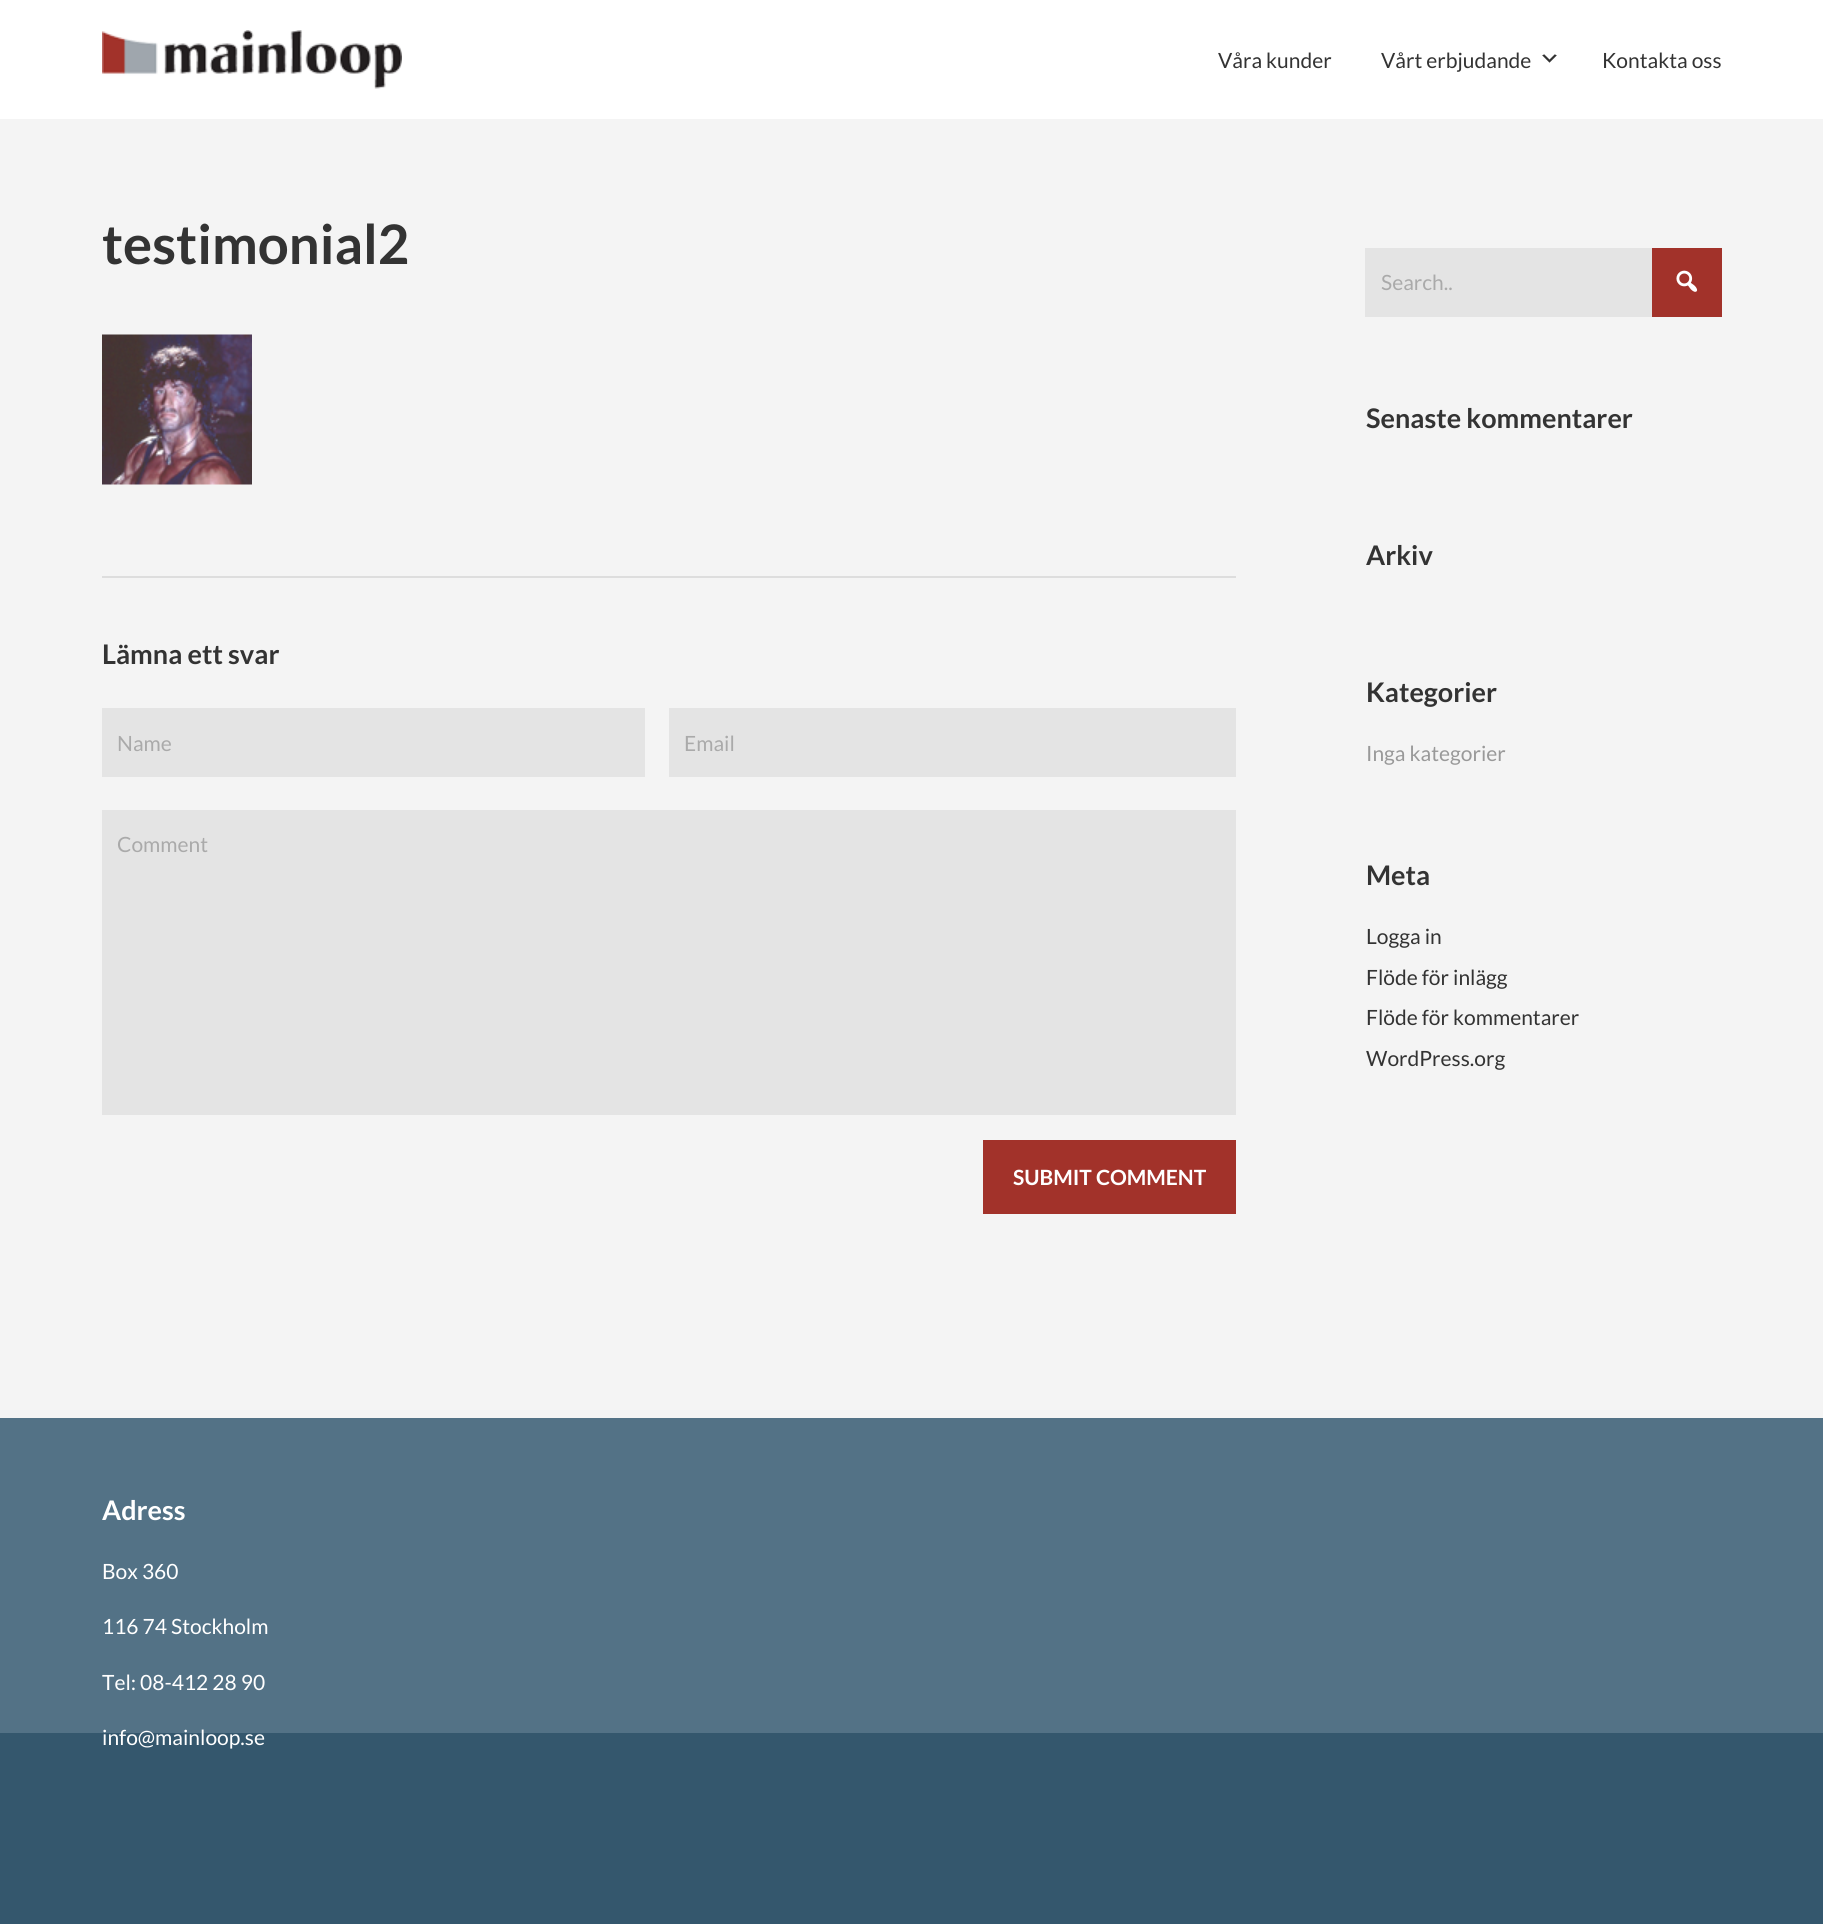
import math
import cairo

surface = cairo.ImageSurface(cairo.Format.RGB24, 1823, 1924)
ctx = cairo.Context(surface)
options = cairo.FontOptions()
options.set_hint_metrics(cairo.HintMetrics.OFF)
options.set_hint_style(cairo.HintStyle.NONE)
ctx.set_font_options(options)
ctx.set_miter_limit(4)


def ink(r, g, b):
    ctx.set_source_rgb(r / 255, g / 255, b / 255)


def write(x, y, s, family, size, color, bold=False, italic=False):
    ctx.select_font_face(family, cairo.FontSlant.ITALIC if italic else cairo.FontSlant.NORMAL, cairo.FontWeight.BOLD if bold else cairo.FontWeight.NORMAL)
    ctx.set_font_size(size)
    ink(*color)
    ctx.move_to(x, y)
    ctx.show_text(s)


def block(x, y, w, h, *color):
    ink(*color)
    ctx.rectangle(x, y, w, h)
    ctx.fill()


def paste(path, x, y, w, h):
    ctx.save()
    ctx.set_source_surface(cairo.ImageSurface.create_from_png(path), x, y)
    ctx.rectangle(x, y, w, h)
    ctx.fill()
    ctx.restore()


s1 = dict(family="Lato", size=21, color=(51, 51, 51))
s2 = dict(family="Lato", size=54.5, color=(51, 51, 51), bold=True)
s3 = dict(family="Lato", size=27, color=(51, 51, 51), bold=True)
s4 = dict(family="Lato", size=21, color=(170, 170, 170))
s5 = dict(family="Lato", size=21, color=(255, 255, 255), bold=True)
s6 = dict(family="Lato", size=21, color=(153, 153, 153))
s7 = dict(family="Lato", size=27, color=(255, 255, 255), bold=True)
s8 = dict(family="Lato", size=21, color=(255, 255, 255))

ink(255, 255, 255)
ctx.paint()
paste("pic1.png", 102, 30, 300, 59)
write(1218, 68, "Våra kunder", **s1)
write(1381, 68, "Vårt erbjudande", **s1)
paste("pic2.png", 1542, 54, 15, 9)
write(1602, 68, "Kontakta oss", **s1)
block(0, 119, 1823, 1299, 244, 244, 244)
write(102, 264, "testimonial2", **s2)
paste("pic3.png", 102, 334, 150, 151)
block(102, 576, 1134, 2, 221, 221, 221)
write(102, 664, "Lämna ett svar", **s3)
block(102, 708, 543, 69, 228, 228, 228)
write(117, 751, "Name", **s4)
block(669, 708, 567, 69, 228, 228, 228)
write(684, 751, "Email", **s4)
block(102, 810, 1134, 305, 228, 228, 228)
write(117, 852, "Comment", **s4)
block(983, 1140, 253, 74, 162, 50, 42)
write(1013, 1185, "SUBMIT COMMENT", **s5)
block(1365, 248, 287, 69, 228, 228, 228)
write(1381, 290, "Search..", **s4)
block(1652, 248, 70, 69, 162, 50, 42)
paste("pic4.png", 1676, 270, 22, 22)
write(1366, 428, "Senaste kommentarer", **s3)
write(1366, 565, "Arkiv", **s3)
write(1366, 702, "Kategorier", **s3)
write(1366, 761, "Inga kategorier", **s6)
write(1366, 885, "Meta", **s3)
write(1366, 944, "Logga in", **s1)
write(1366, 985, "Flöde för inlägg", **s1)
write(1366, 1025, "Flöde för kommentarer", **s1)
write(1366, 1066, "WordPress.org", **s1)
block(0, 1418, 1823, 315, 83, 114, 134)
write(102, 1520, "Adress", **s7)
write(102, 1579, "Box 360", **s8)
write(102, 1634, "116 74 Stockholm", **s8)
write(102, 1690, "Tel: 08-412 28 90", **s8)
block(0, 1733, 1823, 191, 52, 87, 109)
write(102, 1745, "info@mainloop.se", **s8)
surface.write_to_png("screenshot.png")
